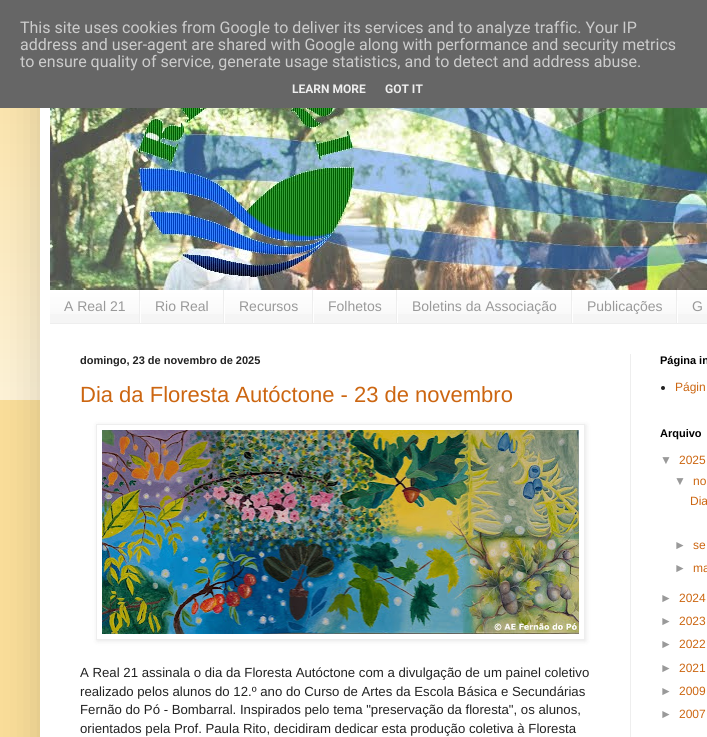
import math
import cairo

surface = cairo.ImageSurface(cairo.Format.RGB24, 707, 737)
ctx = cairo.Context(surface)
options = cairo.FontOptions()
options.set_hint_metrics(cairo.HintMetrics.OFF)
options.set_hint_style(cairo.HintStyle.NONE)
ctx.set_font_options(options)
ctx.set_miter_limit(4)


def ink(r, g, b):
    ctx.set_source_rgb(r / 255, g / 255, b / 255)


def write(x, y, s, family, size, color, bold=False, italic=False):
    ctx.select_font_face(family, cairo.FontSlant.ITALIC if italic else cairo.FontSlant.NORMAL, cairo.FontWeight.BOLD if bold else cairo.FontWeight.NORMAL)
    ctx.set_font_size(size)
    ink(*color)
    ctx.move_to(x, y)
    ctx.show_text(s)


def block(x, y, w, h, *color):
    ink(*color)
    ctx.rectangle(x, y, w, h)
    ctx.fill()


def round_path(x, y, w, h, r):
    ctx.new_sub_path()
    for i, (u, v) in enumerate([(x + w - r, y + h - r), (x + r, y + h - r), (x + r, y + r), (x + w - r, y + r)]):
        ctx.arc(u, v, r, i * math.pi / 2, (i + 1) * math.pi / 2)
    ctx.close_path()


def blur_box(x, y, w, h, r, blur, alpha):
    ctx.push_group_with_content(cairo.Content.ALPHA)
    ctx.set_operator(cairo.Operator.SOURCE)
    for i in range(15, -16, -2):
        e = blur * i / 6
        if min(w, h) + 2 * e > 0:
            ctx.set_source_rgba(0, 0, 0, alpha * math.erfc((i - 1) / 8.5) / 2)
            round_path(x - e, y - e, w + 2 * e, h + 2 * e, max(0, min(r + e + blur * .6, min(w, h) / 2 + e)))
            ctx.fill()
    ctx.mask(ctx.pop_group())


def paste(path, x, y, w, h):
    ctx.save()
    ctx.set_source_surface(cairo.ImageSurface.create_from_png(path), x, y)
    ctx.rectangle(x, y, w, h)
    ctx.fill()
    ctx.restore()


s1 = dict(family="Roboto", size=16, color=(204, 204, 204))
s2 = dict(family="Roboto", size=12, color=(238, 238, 238), bold=True)
s3 = dict(family="Liberation Sans", size=14, color=(153, 153, 153))
s4 = dict(family="Liberation Sans", size=11, color=(34, 34, 34), bold=True)
s5 = dict(family="Liberation Sans", size=22, color=(204, 102, 17))
s6 = dict(family="Liberation Sans", size=13.2, color=(34, 34, 34))
s7 = dict(family="Liberation Sans", size=11, color=(0, 0, 0), bold=True)
s8 = dict(family="Liberation Sans", size=12, color=(204, 102, 17))
s9 = dict(family="Liberation Sans", size=12, color=(153, 153, 153))

ink(249, 221, 153)
ctx.paint()
paste("pic1.png", 0, 108, 40, 292)
ink(0, 0, 0)
blur_box(40, 30, 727, 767, 0, 20, 0.15)
block(0, 0, 707, 108, 102, 102, 102)
write(20, 33, "This site uses cookies from Google to deliver its services and to analyze traffic. Your IP", **s1)
write(20, 50, "address and user-agent are shared with Google along with performance and security metrics", **s1)
write(20, 67, "to ensure quality of service, generate usage statistics, and to detect and address abuse.", **s1)
write(292, 93, "LEARN MORE", **s2)
write(385, 93, "GOT IT", **s2)
block(40, 108, 667, 629, 255, 255, 255)
paste("pic2.png", 50, 108, 657, 182)
block(50, 291, 657, 32, 245, 245, 245)
paste("pic3.png", 50, 290, 657, 24)
block(50, 323, 657, 1, 238, 238, 238)
block(139, 290, 1, 33, 238, 238, 238)
write(64, 311, "A Real 21", **s3)
block(223, 290, 1, 33, 238, 238, 238)
block(140, 301, 1, 22, 255, 255, 255)
write(155, 311, "Rio Real", **s3)
block(312, 290, 1, 33, 238, 238, 238)
block(224, 301, 1, 22, 255, 255, 255)
write(239, 311, "Recursos", **s3)
block(396, 290, 1, 33, 238, 238, 238)
block(313, 301, 1, 22, 255, 255, 255)
write(328, 311, "Folhetos", **s3)
block(571, 290, 1, 33, 238, 238, 238)
block(397, 301, 1, 22, 255, 255, 255)
write(412, 311, "Boletins da Associação", **s3)
block(676, 290, 1, 33, 238, 238, 238)
block(572, 301, 1, 22, 255, 255, 255)
write(587, 311, "Publicações", **s3)
block(677, 301, 1, 22, 255, 255, 255)
write(692, 311, "G", **s3)
block(630, 354, 1, 383, 238, 238, 238)
write(80, 364, "domingo, 23 de novembro de 2025", **s4)
write(80, 402, "Dia da Floresta Autóctone - 23 de novembro", **s5)
ctx.save()
ctx.set_fill_rule(cairo.FillRule.EVEN_ODD)
ctx.new_path()
ctx.move_to(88, 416)
ctx.line_to(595, 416)
ctx.line_to(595, 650)
ctx.line_to(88, 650)
ctx.close_path()
ctx.move_to(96, 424)
ctx.line_to(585, 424)
ctx.line_to(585, 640)
ctx.line_to(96, 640)
ctx.close_path()
ctx.clip()
ink(0, 0, 0)
blur_box(97, 425, 489, 216, 0, 2.5, 0.1)
ctx.restore()
ctx.rectangle(96.5, 424.5, 488, 215)
ink(238, 238, 238)
ctx.set_line_width(1)
ctx.stroke()
paste("pic4.png", 102, 430, 477, 204)
write(80, 677, "A Real 21 assinala o dia da Floresta Autóctone com a divulgação de um painel coletivo", **s6)
write(80, 696, "realizado pelos alunos do 12.º ano do Curso de Artes da Escola Básica e Secundárias", **s6)
write(80, 714, "Fernão do Pó - Bombarral. Inspirados pelo tema \"preservação da floresta\", os alunos,", **s6)
write(80, 733, "orientados pela Prof. Paula Rito, decidiram dedicar esta produção coletiva à Floresta", **s6)
write(660, 364, "Página in", **s7)
ink(34, 34, 34)
ctx.new_path()
ctx.arc(663, 388, 2, 0, 2 * math.pi)
ctx.fill()
write(675, 391, "Págin", **s8)
write(660, 437, "Arquivo", **s7)
write(660, 464, "▼", **s9)
write(679, 464, "2025", **s8)
write(674, 485, "▼", **s9)
write(693, 485, "no", **s8)
write(690, 505, "Dia", **s8)
write(674, 549, "►", **s9)
write(693, 549, "se", **s8)
write(674, 572, "►", **s9)
write(693, 572, "ma", **s8)
write(660, 602, "►", **s9)
write(679, 602, "2024", **s8)
write(660, 625, "►", **s9)
write(679, 625, "2023", **s8)
write(660, 648, "►", **s9)
write(679, 648, "2022", **s8)
write(660, 672, "►", **s9)
write(679, 672, "2021", **s8)
write(660, 695, "►", **s9)
write(679, 695, "2009", **s8)
write(660, 718, "►", **s9)
write(679, 718, "2007", **s8)
surface.write_to_png("screenshot.png")
